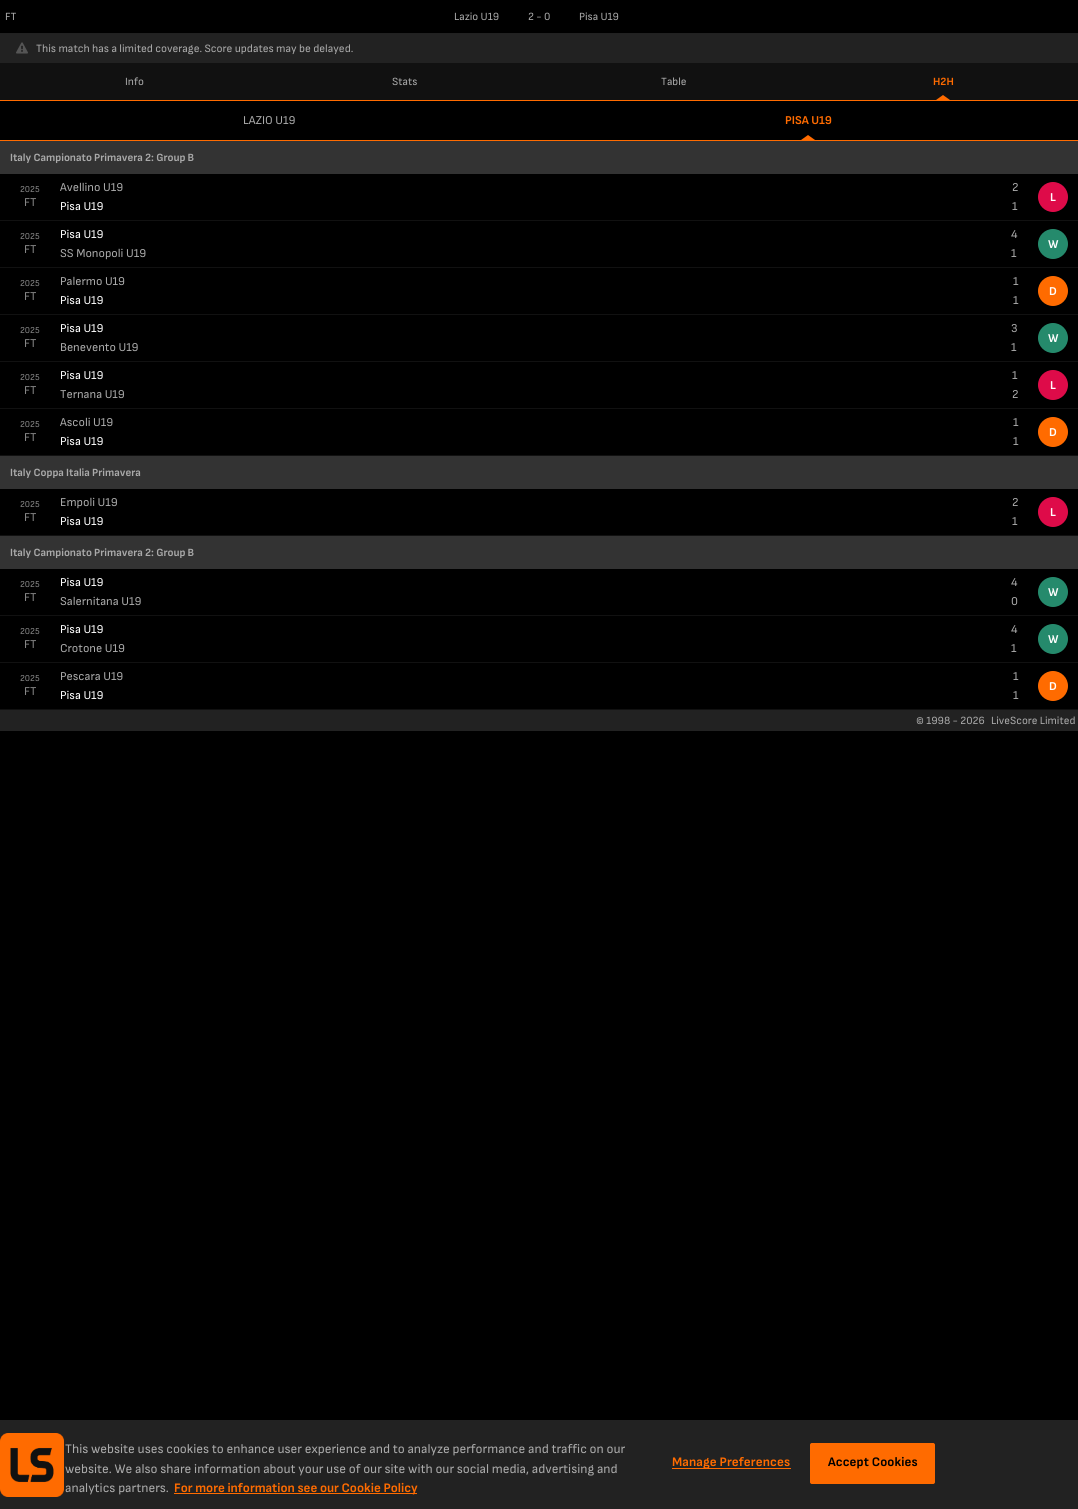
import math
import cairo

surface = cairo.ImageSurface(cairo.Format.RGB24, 1078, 1509)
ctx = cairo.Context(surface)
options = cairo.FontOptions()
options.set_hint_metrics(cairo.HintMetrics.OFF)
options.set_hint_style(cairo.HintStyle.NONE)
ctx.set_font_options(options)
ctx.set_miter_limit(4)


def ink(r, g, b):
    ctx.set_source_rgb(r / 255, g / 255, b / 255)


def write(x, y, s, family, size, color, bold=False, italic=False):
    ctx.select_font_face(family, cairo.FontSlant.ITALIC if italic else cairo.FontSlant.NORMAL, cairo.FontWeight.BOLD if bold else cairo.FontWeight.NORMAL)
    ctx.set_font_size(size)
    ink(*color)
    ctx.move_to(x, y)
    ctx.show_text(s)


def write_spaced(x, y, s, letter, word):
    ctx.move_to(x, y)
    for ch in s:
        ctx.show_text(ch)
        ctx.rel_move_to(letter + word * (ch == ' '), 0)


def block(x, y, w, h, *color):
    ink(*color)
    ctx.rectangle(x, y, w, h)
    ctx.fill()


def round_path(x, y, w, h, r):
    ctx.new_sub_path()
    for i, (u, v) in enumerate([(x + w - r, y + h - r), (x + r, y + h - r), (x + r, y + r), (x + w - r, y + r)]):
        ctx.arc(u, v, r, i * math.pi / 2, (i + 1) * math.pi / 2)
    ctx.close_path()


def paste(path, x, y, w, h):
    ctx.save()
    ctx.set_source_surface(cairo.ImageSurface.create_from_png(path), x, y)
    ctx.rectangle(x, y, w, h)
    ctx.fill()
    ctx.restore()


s1 = dict(family="Sofia Sans", size=11, color=(170, 170, 170))
s2 = dict(family="Sofia Sans", size=11.2, color=(170, 170, 170))
s3 = dict(family="Sofia Sans", size=11, color=(255, 107, 0), bold=True)
s4 = dict(family="Sofia Sans", size=12, color=(170, 170, 170))
s5 = dict(family="Sofia Sans", size=12, color=(255, 107, 0), bold=True)
s6 = dict(family="Sofia Sans", size=11, color=(170, 170, 170), bold=True)
s7 = dict(family="Sofia Sans", size=9, color=(136, 136, 136))
s8 = dict(family="Sofia Sans", size=12, color=(136, 136, 136))
s9 = dict(family="Sofia Sans", size=12, color=(255, 255, 255))
s10 = dict(family="Sofia Sans", size=12, color=(255, 255, 255), bold=True)
s11 = dict(family="Sofia Sans", size=13, color=(170, 170, 170))
s12 = dict(family="Sofia Sans", size=13, color=(255, 107, 0), bold=True)

ink(0, 0, 0)
ctx.paint()
block(0, 33, 1078, 1, 33, 33, 33)
write(5, 20, "FT", **s1)
write(454, 20, "Lazio U19", **s1)
write(528, 20, "2 - 0", **s1)
write(579, 20, "Pisa U19", **s1)
block(0, 34, 1078, 29, 34, 34, 34)
paste("pic1.png", 16, 42, 12, 12)
write(36, 52, "This match has a limited coverage. Score updates may be delayed.", **s2)
block(0, 100, 1078, 1, 255, 107, 0)
block(0, 63, 1078, 37, 17, 17, 17)
write(125, 85, "Info", **s1)
write(392, 85, "Stats", **s1)
write(661, 85, "Table", **s1)
write(933, 85, "H2H", **s3)
paste("pic2.png", 936, 95, 14, 5)
block(0, 140, 1078, 1, 255, 107, 0)
write(243, 124, "LAZIO U19", **s4)
write(785, 124, "PISA U19", **s5)
ctx.new_path()
ctx.move_to(815, 140)
ctx.line_to(801, 140)
ctx.line_to(808, 135)
ctx.close_path()
ctx.fill()
block(0, 141, 1078, 33, 51, 51, 51)
write(10, 161, "Italy Campionato Primavera 2: Group B", **s6)
block(0, 220, 1078, 1, 17, 17, 17)
write(20, 192, "2025", **s7)
write(24, 206, "FT", **s8)
write(60, 191, "Avellino U19", **s4)
write(60, 210, "Pisa U19", **s9)
write(1012, 191, "2", **s4)
write(1012, 210, "1", **s4)
ink(222, 11, 73)
ctx.new_path()
ctx.arc(1053, 197, 15, 0, 2 * math.pi)
ctx.fill()
write(1050, 201, "L", **s10)
block(0, 267, 1078, 1, 17, 17, 17)
write(20, 239, "2025", **s7)
write(24, 253, "FT", **s8)
write(60, 238, "Pisa U19", **s9)
write(60, 257, "SS Monopoli U19", **s4)
write(1011, 238, "4", **s4)
write(1011, 257, "1", **s4)
ink(37, 138, 108)
ctx.new_path()
ctx.arc(1053, 244, 15, 0, 2 * math.pi)
ctx.fill()
write(1048, 248, "W", **s10)
block(0, 314, 1078, 1, 17, 17, 17)
write(20, 286, "2025", **s7)
write(24, 300, "FT", **s8)
write(60, 285, "Palermo U19", **s4)
write(60, 304, "Pisa U19", **s9)
write(1013, 285, "1", **s4)
write(1013, 304, "1", **s4)
ink(255, 107, 0)
ctx.new_path()
ctx.arc(1053, 291, 15, 0, 2 * math.pi)
ctx.fill()
write(1049, 295, "D", **s10)
block(0, 361, 1078, 1, 17, 17, 17)
write(20, 333, "2025", **s7)
write(24, 347, "FT", **s8)
write(60, 332, "Pisa U19", **s9)
write(60, 351, "Benevento U19", **s4)
write(1011, 332, "3", **s4)
write(1011, 351, "1", **s4)
ink(37, 138, 108)
ctx.new_path()
ctx.arc(1053, 338, 15, 0, 2 * math.pi)
ctx.fill()
write(1048, 342, "W", **s10)
block(0, 408, 1078, 1, 17, 17, 17)
write(20, 380, "2025", **s7)
write(24, 394, "FT", **s8)
write(60, 379, "Pisa U19", **s9)
write(60, 398, "Ternana U19", **s4)
write(1012, 379, "1", **s4)
write(1012, 398, "2", **s4)
ink(222, 11, 73)
ctx.new_path()
ctx.arc(1053, 385, 15, 0, 2 * math.pi)
ctx.fill()
write(1050, 389, "L", **s10)
block(0, 455, 1078, 1, 17, 17, 17)
write(20, 427, "2025", **s7)
write(24, 441, "FT", **s8)
write(60, 426, "Ascoli U19", **s4)
write(60, 445, "Pisa U19", **s9)
write(1013, 426, "1", **s4)
write(1013, 445, "1", **s4)
ink(255, 107, 0)
ctx.new_path()
ctx.arc(1053, 432, 15, 0, 2 * math.pi)
ctx.fill()
write(1049, 436, "D", **s10)
block(0, 456, 1078, 33, 51, 51, 51)
write(10, 476, "Italy Coppa Italia Primavera", **s6)
block(0, 535, 1078, 1, 17, 17, 17)
write(20, 507, "2025", **s7)
write(24, 521, "FT", **s8)
write(60, 506, "Empoli U19", **s4)
write(60, 525, "Pisa U19", **s9)
write(1012, 506, "2", **s4)
write(1012, 525, "1", **s4)
ink(222, 11, 73)
ctx.new_path()
ctx.arc(1053, 512, 15, 0, 2 * math.pi)
ctx.fill()
write(1050, 516, "L", **s10)
block(0, 536, 1078, 33, 51, 51, 51)
write(10, 556, "Italy Campionato Primavera 2: Group B", **s6)
block(0, 615, 1078, 1, 17, 17, 17)
write(20, 587, "2025", **s7)
write(24, 601, "FT", **s8)
write(60, 586, "Pisa U19", **s9)
write(60, 605, "Salernitana U19", **s4)
write(1011, 586, "4", **s4)
write(1011, 605, "0", **s4)
ink(37, 138, 108)
ctx.new_path()
ctx.arc(1053, 592, 15, 0, 2 * math.pi)
ctx.fill()
write(1048, 596, "W", **s10)
block(0, 662, 1078, 1, 17, 17, 17)
write(20, 634, "2025", **s7)
write(24, 648, "FT", **s8)
write(60, 633, "Pisa U19", **s9)
write(60, 652, "Crotone U19", **s4)
write(1011, 633, "4", **s4)
write(1011, 652, "1", **s4)
ink(37, 138, 108)
ctx.new_path()
ctx.arc(1053, 639, 15, 0, 2 * math.pi)
ctx.fill()
write(1048, 643, "W", **s10)
block(0, 709, 1078, 1, 17, 17, 17)
write(20, 681, "2025", **s7)
write(24, 695, "FT", **s8)
write(60, 680, "Pescara U19", **s4)
write(60, 699, "Pisa U19", **s9)
write(1013, 680, "1", **s4)
write(1013, 699, "1", **s4)
ink(255, 107, 0)
ctx.new_path()
ctx.arc(1053, 686, 15, 0, 2 * math.pi)
ctx.fill()
write(1049, 690, "D", **s10)
block(0, 710, 1078, 21, 34, 34, 34)
write(916, 724, "© 1998 - 2026", **s1)
write(991, 724, "LiveScore Limited", **s1)
block(0, 1420, 1078, 89, 34, 34, 34)
paste("pic3.png", 0, 1433, 64, 64)
write(65, 1453, "This website uses cookies to enhance user experience and to analyze performance and traffic on our", **s11)
write(65, 1473, "website. We also share information about your use of our site with our social media, advertising and", **s11)
write(65, 1492, "analytics partners.", **s11)
block(174, 1493, 243, 1, 255, 107, 0)
write(174, 1492, "For more information see our Cookie Policy", **s12)
block(672, 1468, 119, 1, 255, 107, 0)
write_spaced(672, 1466, "Manage Preferences", 0.1, 0)
round_path(810.5, 1443.5, 124, 40, 1.5)
ctx.fill_preserve()
ctx.set_line_width(1)
ctx.stroke()
ink(0, 0, 0)
write_spaced(828, 1466, "Accept Cookies", 0.1, 0)
surface.write_to_png("screenshot.png")
